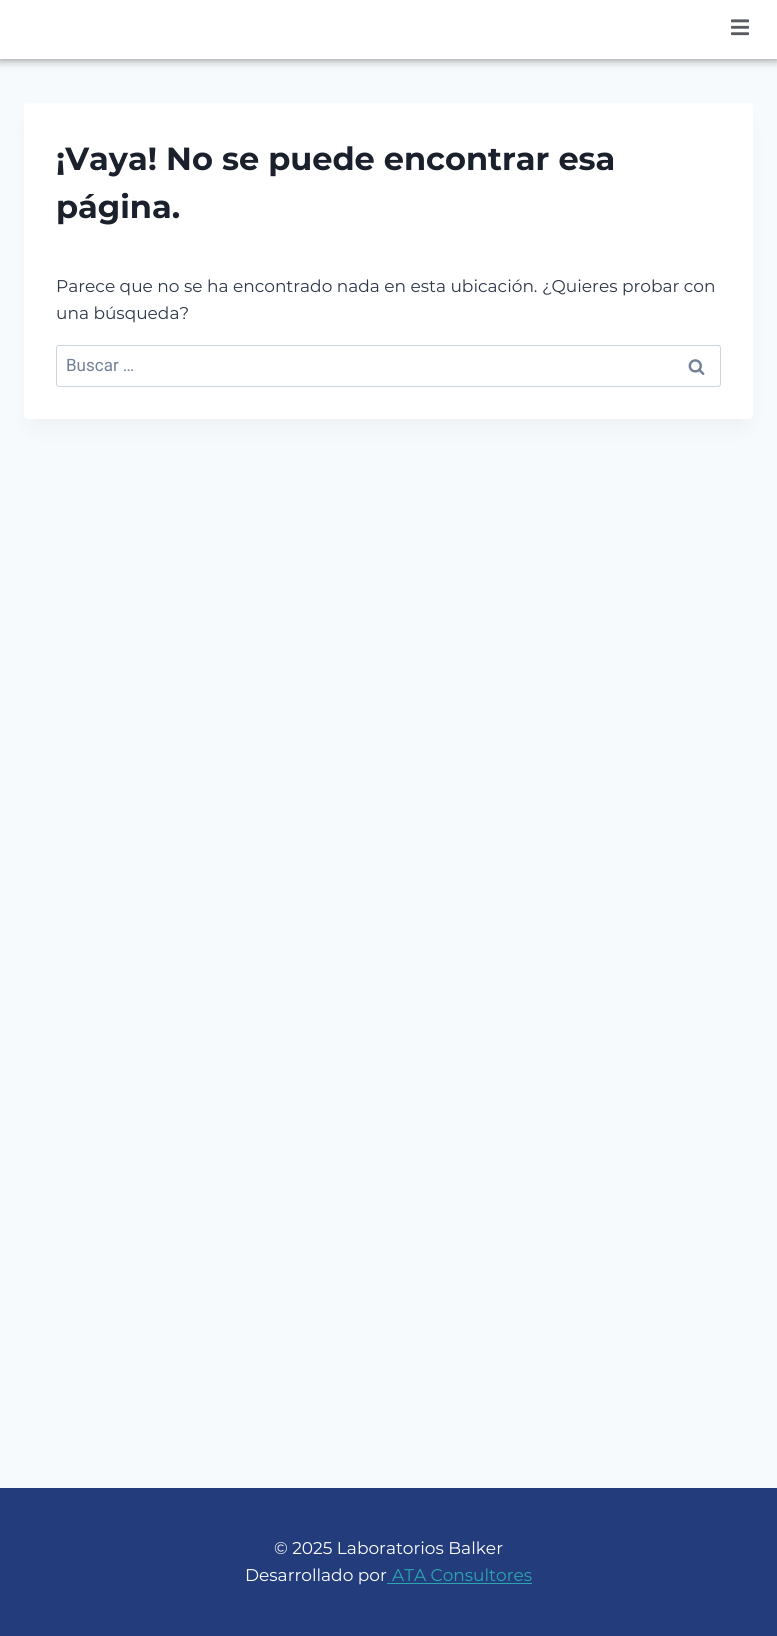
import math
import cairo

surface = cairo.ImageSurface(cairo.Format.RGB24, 777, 1636)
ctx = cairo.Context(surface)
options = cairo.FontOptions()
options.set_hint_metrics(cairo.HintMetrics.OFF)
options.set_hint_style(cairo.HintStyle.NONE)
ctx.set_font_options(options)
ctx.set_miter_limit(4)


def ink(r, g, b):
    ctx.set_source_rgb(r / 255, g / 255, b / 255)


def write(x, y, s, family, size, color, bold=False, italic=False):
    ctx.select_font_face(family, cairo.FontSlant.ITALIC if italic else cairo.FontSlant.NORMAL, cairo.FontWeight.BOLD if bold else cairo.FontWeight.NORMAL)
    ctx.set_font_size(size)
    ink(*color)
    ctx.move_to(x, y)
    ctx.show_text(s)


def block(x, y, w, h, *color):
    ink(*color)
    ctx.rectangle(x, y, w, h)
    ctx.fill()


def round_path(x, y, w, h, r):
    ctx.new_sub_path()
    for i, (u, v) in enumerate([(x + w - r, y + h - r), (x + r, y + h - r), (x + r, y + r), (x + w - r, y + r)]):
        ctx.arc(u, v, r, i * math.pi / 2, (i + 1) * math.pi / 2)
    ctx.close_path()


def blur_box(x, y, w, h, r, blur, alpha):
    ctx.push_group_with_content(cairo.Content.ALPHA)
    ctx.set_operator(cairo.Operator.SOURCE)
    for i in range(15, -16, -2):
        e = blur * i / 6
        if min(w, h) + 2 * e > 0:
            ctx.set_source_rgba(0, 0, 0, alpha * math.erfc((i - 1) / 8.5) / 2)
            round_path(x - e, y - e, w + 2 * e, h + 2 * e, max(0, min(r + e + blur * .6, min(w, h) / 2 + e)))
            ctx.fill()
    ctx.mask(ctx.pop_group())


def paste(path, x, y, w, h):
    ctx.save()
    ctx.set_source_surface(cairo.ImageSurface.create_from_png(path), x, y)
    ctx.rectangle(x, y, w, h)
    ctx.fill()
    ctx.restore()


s1 = dict(family="Montserrat", size=32, color=(26, 32, 44), bold=True)
s2 = dict(family="Montserrat", size=17, color=(45, 55, 72))
s3 = dict(family="Roboto", size=17, color=(113, 128, 150))
s4 = dict(family="Montserrat", size=17, color=(255, 255, 255))
s5 = dict(family="Montserrat", size=17, color=(43, 166, 176))

ink(247, 250, 252)
ctx.paint()
ink(0, 0, 0)
blur_box(0, 0, 777, 59, 0, 5, 0.5)
block(0, 0, 777, 59, 255, 255, 255)
paste("pic1.png", 731, 19, 18, 17)
ink(0, 0, 0)
blur_box(34, 128, 709, 296, 0, 12.5, 0.05)
ink(255, 255, 255)
round_path(24, 103, 729, 316, 4)
ctx.fill()
write(56, 170, "¡Vaya! No se puede encontrar esa", **s1)
write(56, 218, "página.", **s1)
write(56, 292, "Parece que no se ha encontrado nada en esta ubicación. ¿Quieres probar con", **s2)
write(56, 319, "una búsqueda?", **s2)
round_path(56.5, 345.5, 664, 41, 2.5)
ink(203, 213, 224)
ctx.set_line_width(1)
ctx.stroke()
write(66, 371, "Buscar …", **s3)
paste("pic2.png", 688, 359, 17, 16)
block(0, 1488, 777, 148, 35, 60, 124)
write(274, 1554, "© 2025 Laboratorios Balker", **s4)
write(245, 1581, "Desarrollado por", **s4)
write(392, 1581, "ATA Consultores", **s5)
block(387, 1583, 145, 1, 43, 166, 176)
surface.write_to_png("screenshot.png")
